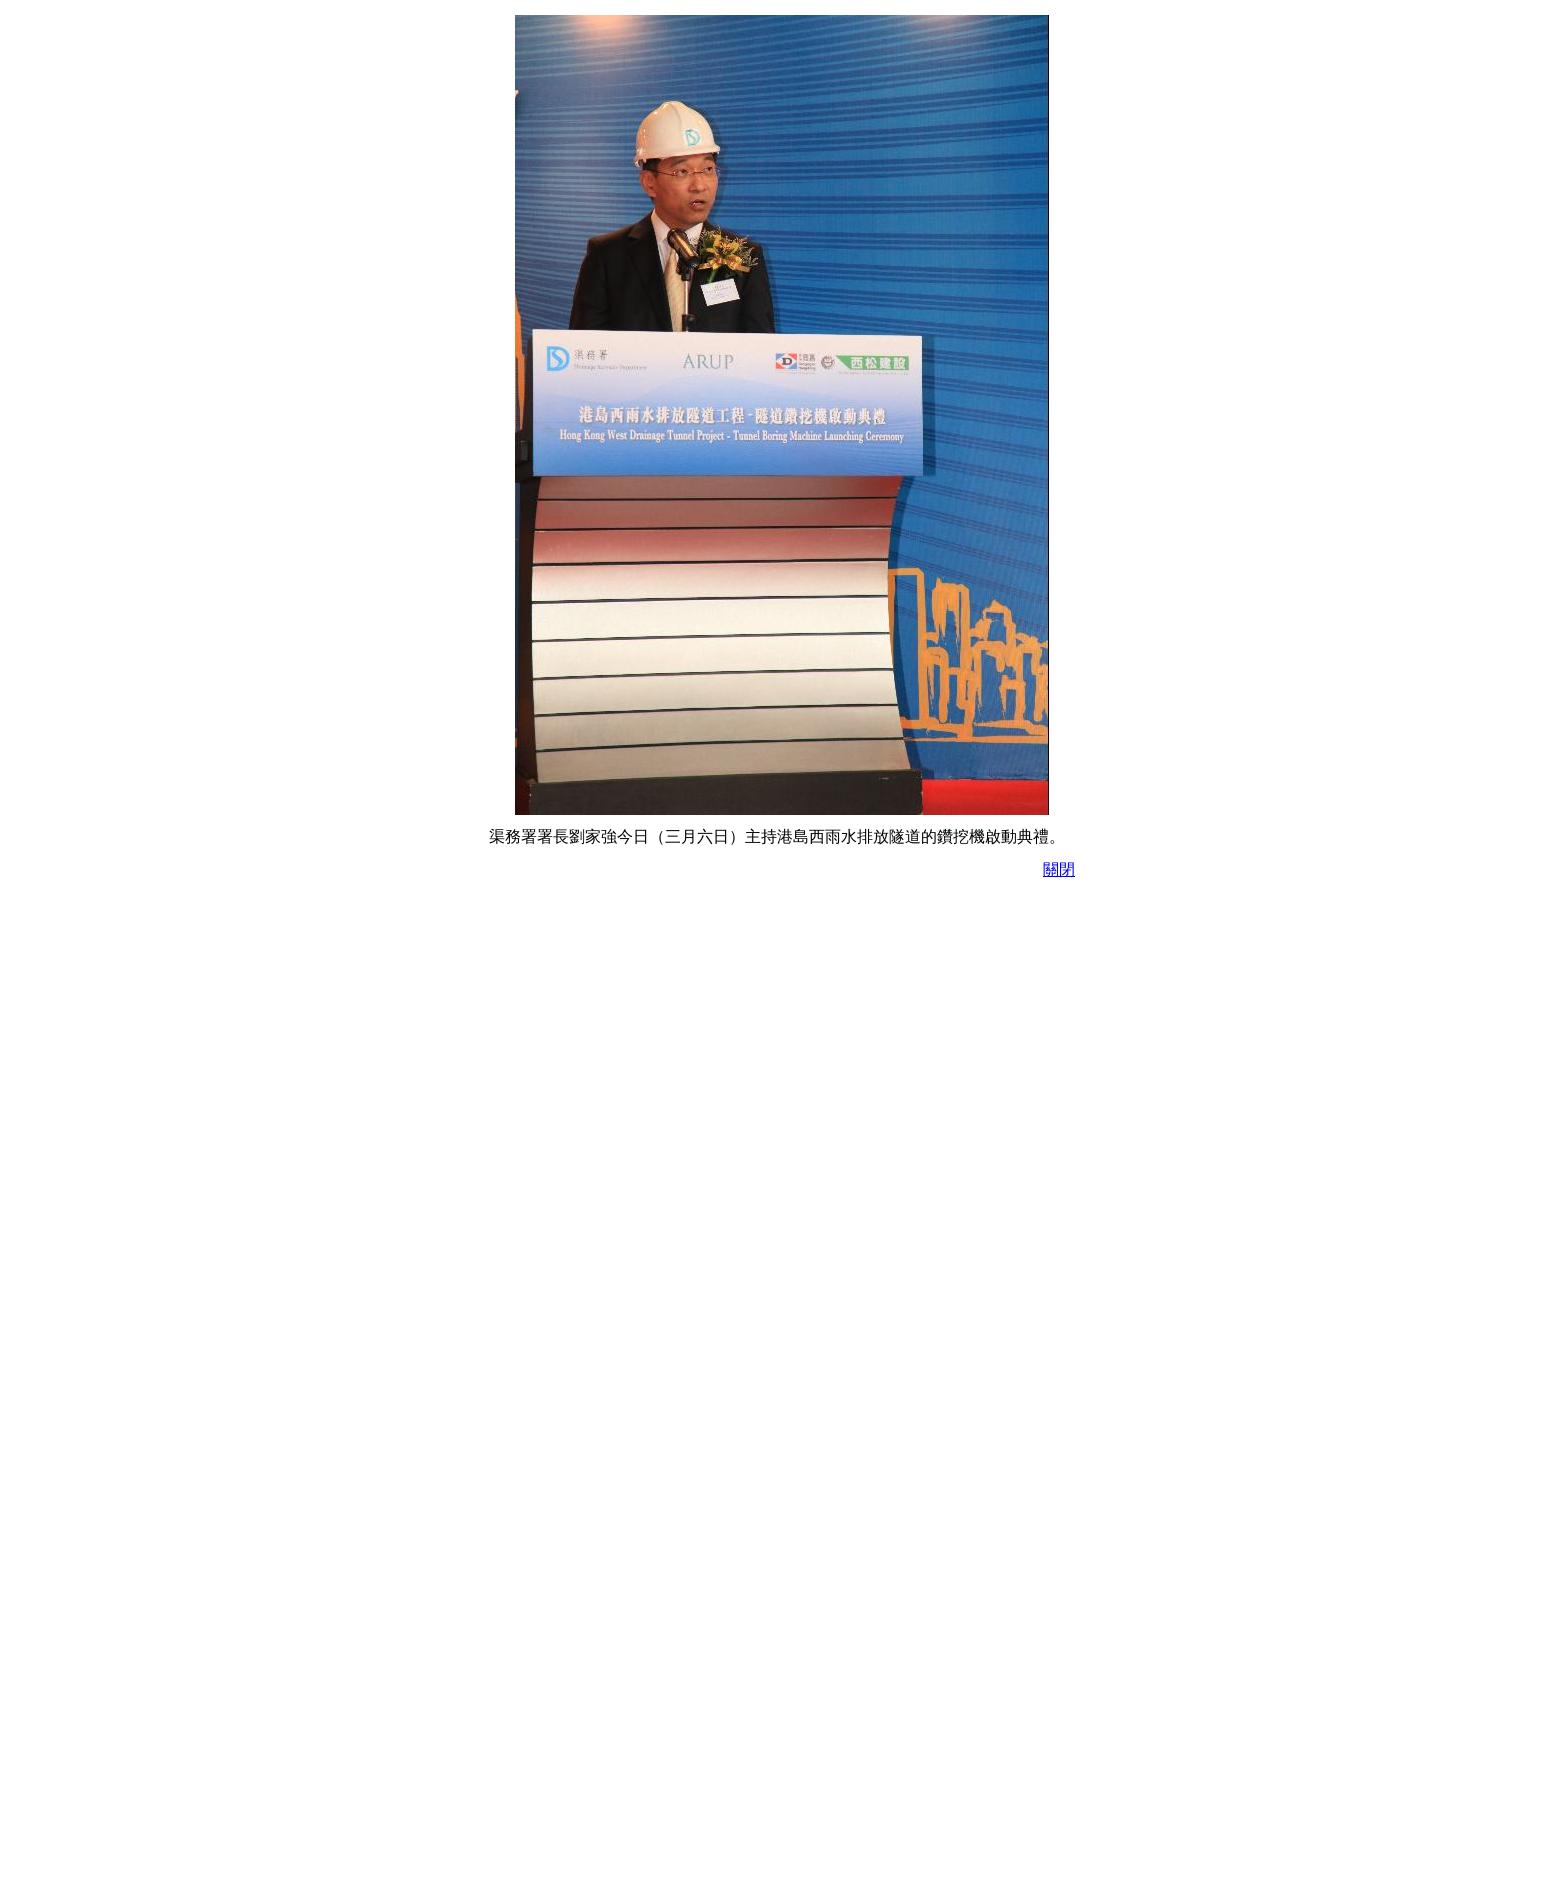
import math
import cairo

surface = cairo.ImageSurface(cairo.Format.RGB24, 1564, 1892)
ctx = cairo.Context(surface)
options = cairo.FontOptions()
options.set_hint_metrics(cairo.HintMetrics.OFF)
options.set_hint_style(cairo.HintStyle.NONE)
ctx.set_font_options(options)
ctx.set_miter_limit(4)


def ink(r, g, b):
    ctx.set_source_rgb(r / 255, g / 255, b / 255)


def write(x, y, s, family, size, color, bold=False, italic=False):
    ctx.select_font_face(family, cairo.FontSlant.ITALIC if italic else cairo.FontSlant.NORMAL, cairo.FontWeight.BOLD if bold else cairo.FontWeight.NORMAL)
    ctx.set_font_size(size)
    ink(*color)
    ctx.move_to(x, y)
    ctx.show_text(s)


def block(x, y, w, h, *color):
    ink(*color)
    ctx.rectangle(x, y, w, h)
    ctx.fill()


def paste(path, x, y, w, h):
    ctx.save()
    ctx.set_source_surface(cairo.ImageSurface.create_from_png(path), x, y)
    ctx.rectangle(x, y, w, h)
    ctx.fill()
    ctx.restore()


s1 = dict(family="WenQuanYi Zen Hei Medium", size=16, color=(0, 0, 0))
s2 = dict(family="WenQuanYi Zen Hei Medium", size=16, color=(0, 0, 238))

ink(255, 255, 255)
ctx.paint()
paste("pic1.png", 515, 15, 534, 800)
write(489, 842, "渠務署署長劉家強今日（三月六日）主持港島西雨水排放隧道的鑽挖機啟動典禮。", **s1)
block(1043, 876, 32, 1, 0, 0, 238)
write(1043, 875, "關閉", **s2)
surface.write_to_png("screenshot.png")
